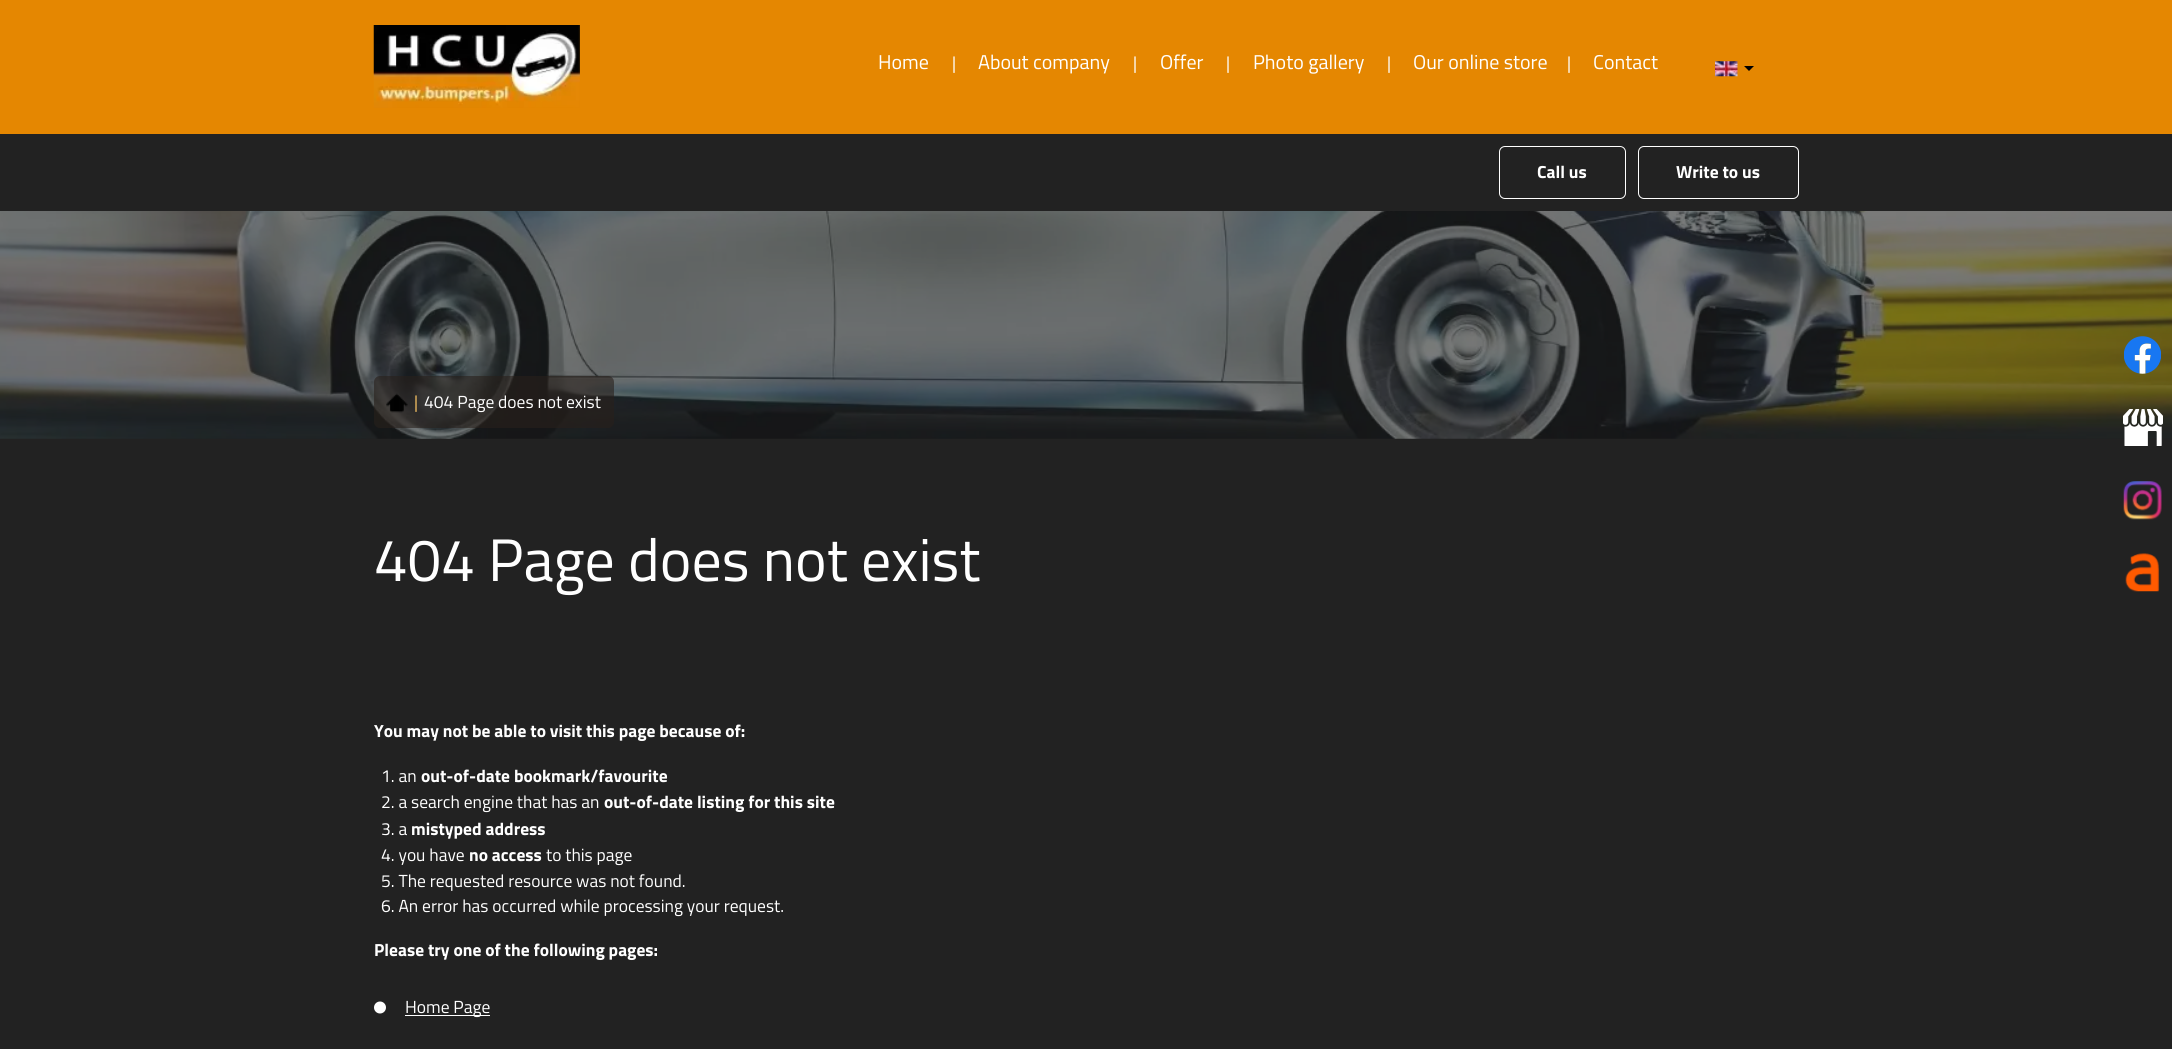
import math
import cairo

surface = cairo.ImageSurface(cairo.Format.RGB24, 2172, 1049)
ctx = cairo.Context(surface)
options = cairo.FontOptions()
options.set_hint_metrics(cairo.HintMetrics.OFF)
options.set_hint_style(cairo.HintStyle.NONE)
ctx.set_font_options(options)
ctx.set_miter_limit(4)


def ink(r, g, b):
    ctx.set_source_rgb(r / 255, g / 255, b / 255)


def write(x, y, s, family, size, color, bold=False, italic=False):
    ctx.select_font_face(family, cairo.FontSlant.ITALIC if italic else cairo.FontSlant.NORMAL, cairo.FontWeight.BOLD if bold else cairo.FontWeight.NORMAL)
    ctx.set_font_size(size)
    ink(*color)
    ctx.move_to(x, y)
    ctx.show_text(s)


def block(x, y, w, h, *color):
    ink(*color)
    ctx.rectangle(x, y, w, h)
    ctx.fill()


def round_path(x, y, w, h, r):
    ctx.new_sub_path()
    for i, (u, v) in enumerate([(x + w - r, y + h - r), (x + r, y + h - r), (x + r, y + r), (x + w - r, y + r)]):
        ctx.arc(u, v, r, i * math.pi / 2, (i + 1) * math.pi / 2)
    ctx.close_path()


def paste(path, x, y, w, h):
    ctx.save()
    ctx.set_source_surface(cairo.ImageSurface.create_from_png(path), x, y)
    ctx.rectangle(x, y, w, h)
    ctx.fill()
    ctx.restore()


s1 = dict(family="Cairo", size=20, color=(255, 255, 255))
s2 = dict(family="Cairo", size=17.5, color=(255, 255, 255))
s3 = dict(family="Cairo", size=17.5, color=(255, 255, 255), bold=True)
s4 = dict(family="Cairo", size=17.5, color=(242, 189, 97))
s5 = dict(family="Cairo", size=60, color=(255, 255, 255))

ink(34, 34, 34)
ctx.paint()
block(0, 0, 2172, 134, 229, 135, 1)
paste("pic1.png", 373, 25, 207, 83)
write(878, 69, "Home", **s1)
write(952, 69, "|", **s2)
write(978, 69, "About company", **s1)
write(1133, 69, "|", **s2)
write(1160, 69, "Offer", **s1)
write(1226, 69, "|", **s2)
write(1253, 69, "Photo gallery", **s1)
write(1387, 69, "|", **s2)
write(1413, 69, "Our online store", **s1)
write(1567, 69, "|", **s2)
write(1593, 69, "Contact", **s1)
paste("pic2.png", 1715, 61, 23, 16)
ink(0, 0, 0)
ctx.new_path()
ctx.move_to(1744, 66)
ctx.line_to(1754, 66)
ctx.line_to(1749, 71)
ctx.close_path()
ctx.fill()
round_path(1499.5, 146.5, 126, 52, 5.5)
ink(255, 255, 255)
ctx.set_line_width(1)
ctx.stroke()
write(1537, 178, "Call us", **s3)
round_path(1638.5, 146.5, 160, 52, 5.5)
ctx.stroke()
write(1676, 178, "Write to us", **s3)
paste("pic3.png", 0, 211, 2172, 228)
ctx.set_source_rgba(0.161, 0.125, 0.11, 0.6)
round_path(374, 376, 240, 52, 6)
ctx.fill()
paste("pic4.png", 386, 393, 22, 20)
write(414, 408, "|", **s4)
write(424, 408, "404 Page does not exist", **s2)
write(374, 581, "404 Page does not exist", **s5)
write(374, 737, "You may not be able to visit this page because of:", **s3)
write(381, 782, "1. an", **s2)
write(421, 782, "out-of-date bookmark/favourite", **s3)
write(381, 808, "2. a search engine that has an", **s2)
write(604, 808, "out-of-date listing for this site", **s3)
write(381, 835, "3. a", **s2)
write(411, 835, "mistyped address", **s3)
write(381, 861, "4. you have", **s2)
write(469, 861, "no access", **s3)
write(546, 861, "to this page", **s2)
write(381, 887, "5. The requested resource was not found.", **s2)
write(381, 912, "6. An error has occurred while processing your request.", **s2)
write(374, 956, "Please try one of the following pages:", **s3)
ctx.new_path()
ctx.arc(380, 1007.5, 6, 0, 2 * math.pi)
ctx.fill()
block(405, 1015, 85, 1, 255, 255, 255)
write(405, 1013, "Home Page", **s2)
paste("pic5.png", 2124, 336, 37, 38)
paste("pic6.png", 2123, 409, 40, 37)
paste("pic7.png", 2123, 481, 39, 39)
paste("pic8.png", 2125, 553, 35, 39)
surface.write_to_png("screenshot.png")
